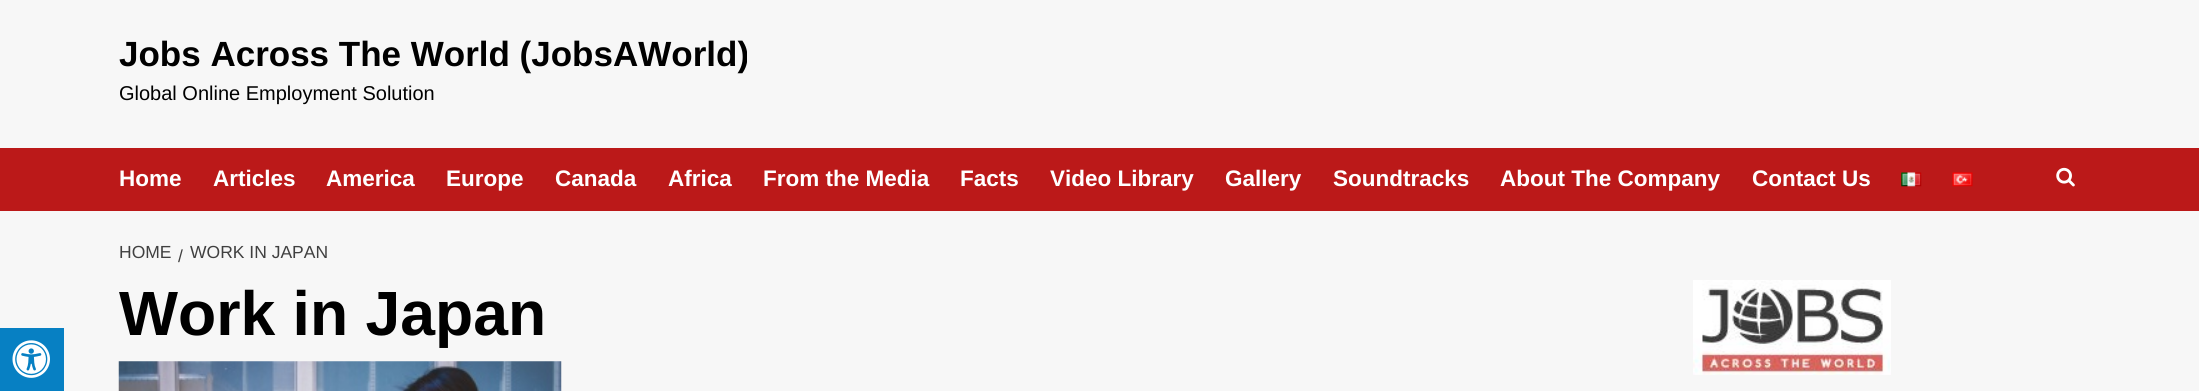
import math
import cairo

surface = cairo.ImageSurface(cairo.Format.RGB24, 2199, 391)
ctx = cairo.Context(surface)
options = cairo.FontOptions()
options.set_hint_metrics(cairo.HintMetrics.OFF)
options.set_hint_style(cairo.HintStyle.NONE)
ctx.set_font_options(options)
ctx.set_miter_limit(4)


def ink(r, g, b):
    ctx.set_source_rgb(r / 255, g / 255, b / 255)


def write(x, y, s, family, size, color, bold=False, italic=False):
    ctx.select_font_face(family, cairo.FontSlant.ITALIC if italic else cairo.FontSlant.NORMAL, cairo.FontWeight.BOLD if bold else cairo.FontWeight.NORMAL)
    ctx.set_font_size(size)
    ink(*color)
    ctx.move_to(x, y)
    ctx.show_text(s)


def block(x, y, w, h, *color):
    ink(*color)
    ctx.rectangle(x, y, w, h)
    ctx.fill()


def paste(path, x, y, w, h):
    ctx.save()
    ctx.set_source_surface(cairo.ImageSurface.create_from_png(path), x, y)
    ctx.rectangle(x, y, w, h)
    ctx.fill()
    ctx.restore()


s1 = dict(family="Liberation Sans", size=35, color=(0, 0, 0), bold=True)
s2 = dict(family="Liberation Sans", size=20, color=(0, 0, 0))
s3 = dict(family="Liberation Sans", size=22.5, color=(255, 255, 255), bold=True)
s4 = dict(family="Liberation Sans", size=17.5, color=(64, 64, 64))
s5 = dict(family="Liberation Sans", size=62.5, color=(0, 0, 0), bold=True)

ink(247, 247, 247)
ctx.paint()
write(119, 66, "Jobs Across The World (JobsAWorld)", **s1)
write(119, 100, "Global Online Employment Solution", **s2)
block(0, 148, 2199, 63, 187, 25, 25)
write(119, 186, "Home", **s3)
write(213, 186, "Articles", **s3)
write(326, 186, "America", **s3)
write(446, 186, "Europe", **s3)
write(555, 186, "Canada", **s3)
write(668, 186, "Africa", **s3)
write(763, 186, "From the Media", **s3)
write(960, 186, "Facts", **s3)
write(1050, 186, "Video Library", **s3)
write(1225, 186, "Gallery", **s3)
write(1333, 186, "Soundtracks", **s3)
write(1500, 186, "About The Company", **s3)
write(1752, 186, "Contact Us", **s3)
paste("pic1.png", 1901, 172, 21, 15)
paste("pic2.png", 1952, 172, 21, 15)
paste("pic3.png", 2056, 167, 19, 20)
write(119, 258, "HOME", **s4)
write(178, 262, "/", **s4)
write(190, 258, "WORK IN JAPAN", **s4)
write(119, 335, "Work in Japan", **s5)
paste("pic4.png", 118, 361, 444, 30)
paste("pic5.png", 1693, 280, 198, 95)
block(0, 328, 64, 63, 7, 128, 195)
paste("pic6.png", 12, 340, 38, 38)
surface.write_to_png("screenshot.png")
